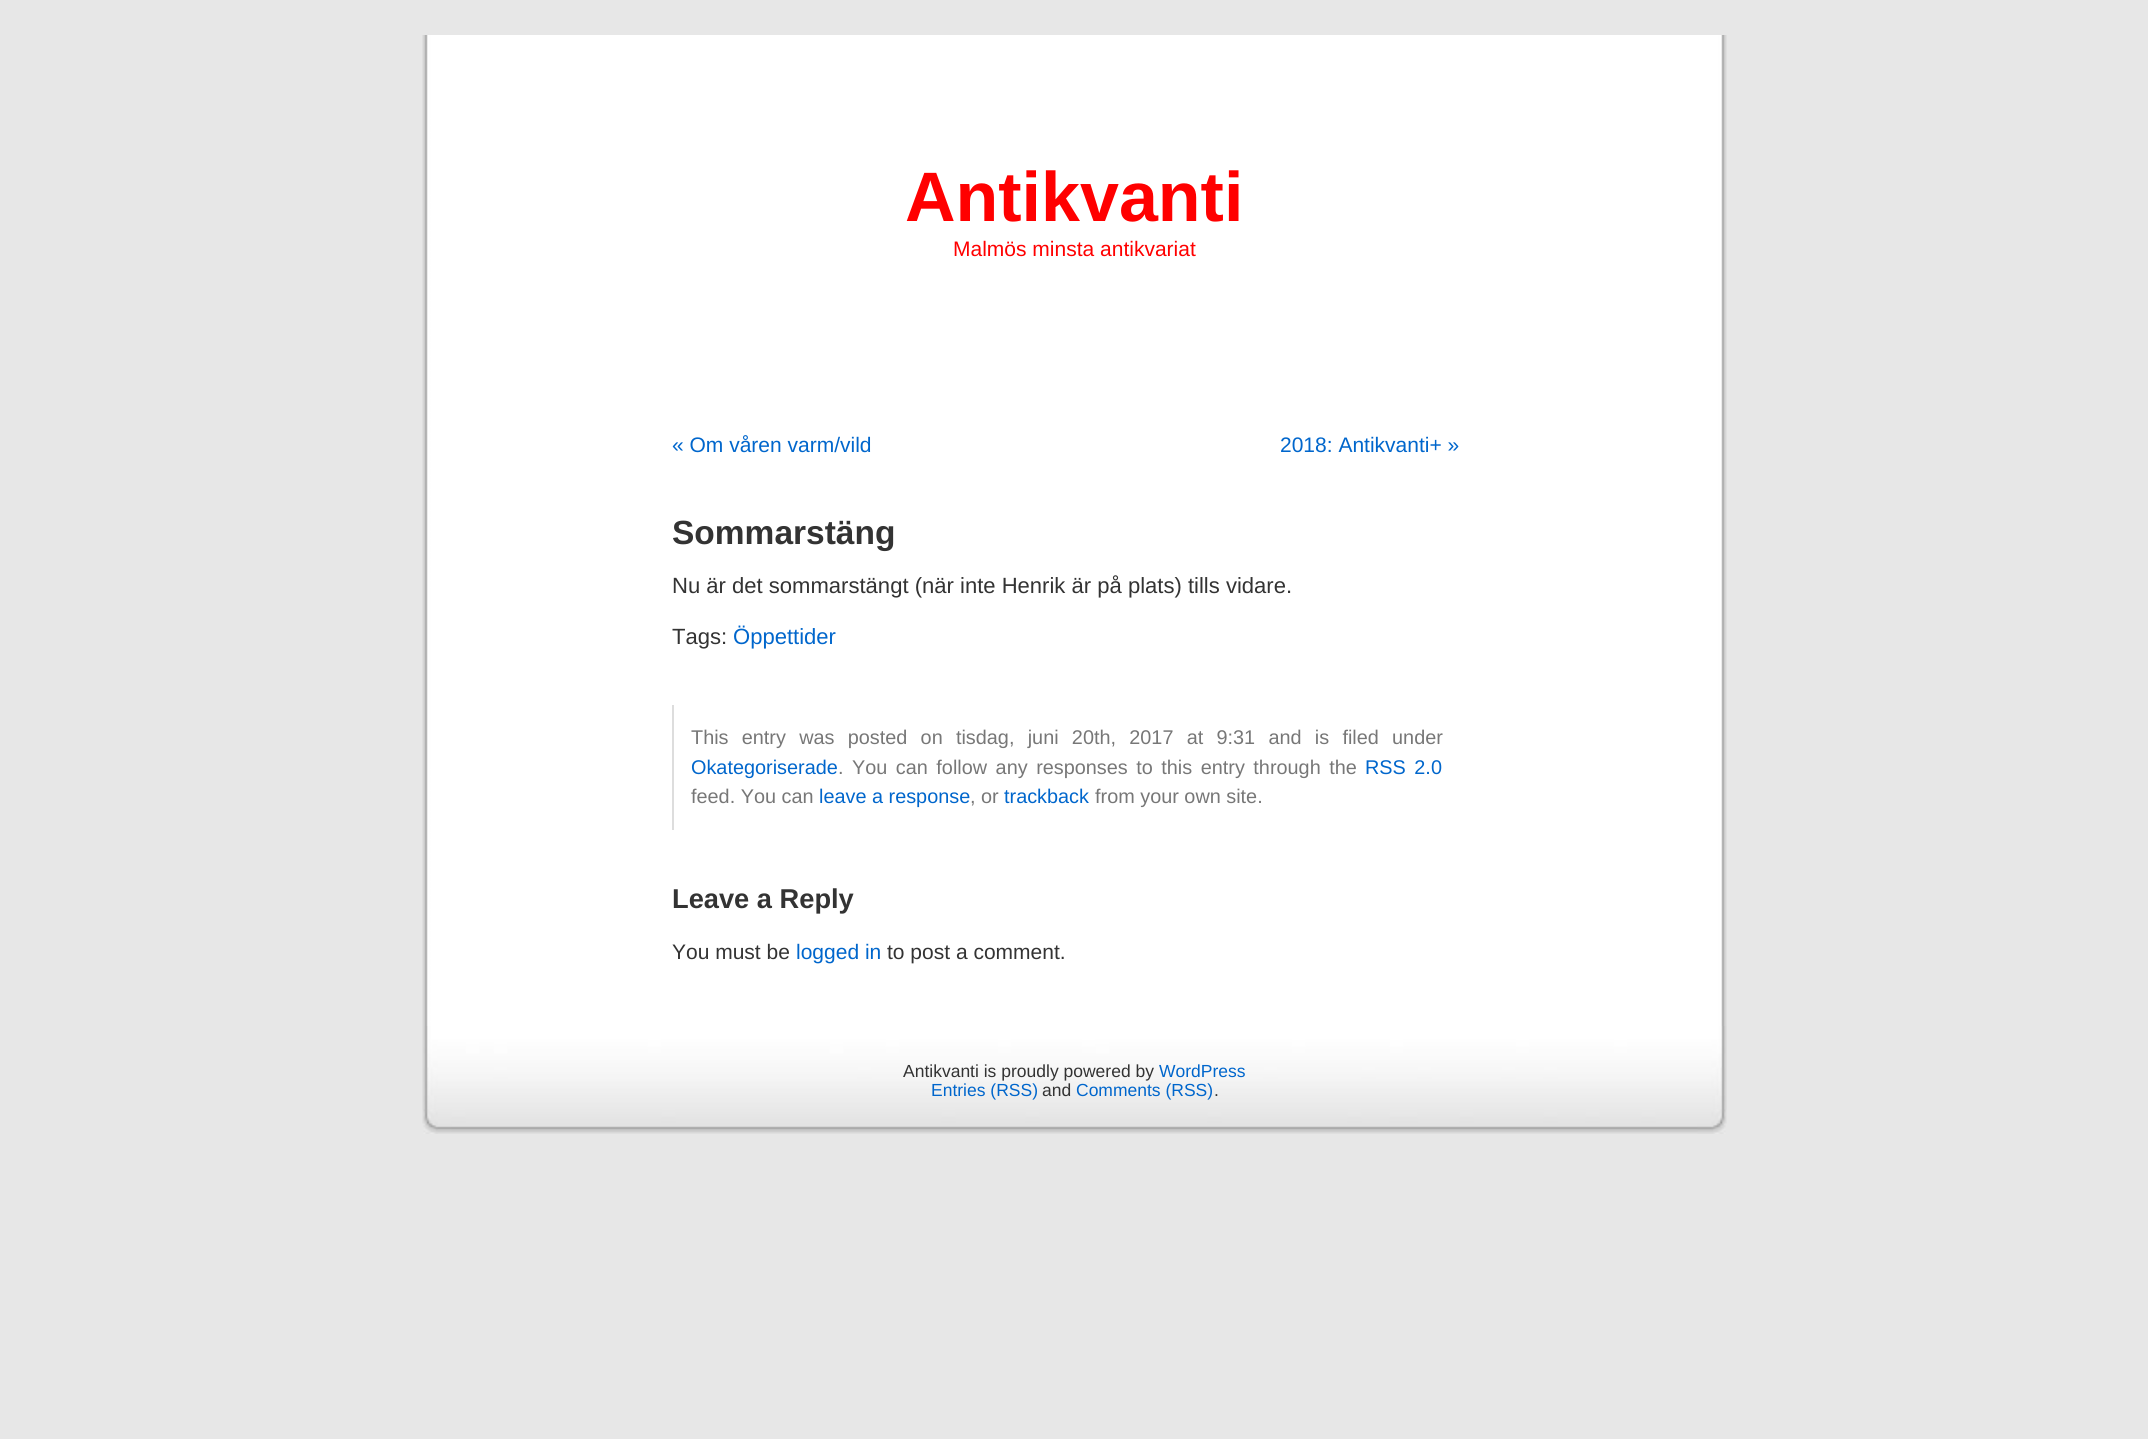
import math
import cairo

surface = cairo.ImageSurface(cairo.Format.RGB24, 2148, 1439)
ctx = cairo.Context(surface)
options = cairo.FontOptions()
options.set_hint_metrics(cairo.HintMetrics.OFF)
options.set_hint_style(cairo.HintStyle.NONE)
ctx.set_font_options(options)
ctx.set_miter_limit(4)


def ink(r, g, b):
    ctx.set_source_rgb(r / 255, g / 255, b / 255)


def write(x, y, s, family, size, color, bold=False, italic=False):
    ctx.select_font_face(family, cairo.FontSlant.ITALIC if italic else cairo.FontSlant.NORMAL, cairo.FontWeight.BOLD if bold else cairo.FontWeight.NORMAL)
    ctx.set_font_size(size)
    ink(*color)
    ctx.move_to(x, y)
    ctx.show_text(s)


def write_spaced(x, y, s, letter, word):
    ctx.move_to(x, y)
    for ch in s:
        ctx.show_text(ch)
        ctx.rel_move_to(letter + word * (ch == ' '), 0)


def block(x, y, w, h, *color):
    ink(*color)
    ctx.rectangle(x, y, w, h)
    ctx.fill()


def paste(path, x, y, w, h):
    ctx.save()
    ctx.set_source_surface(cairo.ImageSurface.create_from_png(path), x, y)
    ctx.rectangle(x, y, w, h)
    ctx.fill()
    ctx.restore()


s1 = dict(family="Liberation Sans", size=70, color=(255, 0, 0), bold=True)
s2 = dict(family="Liberation Sans", size=21, color=(255, 0, 0))
s3 = dict(family="Liberation Sans", size=21, color=(0, 102, 204))
s4 = dict(family="Liberation Sans", size=33.5, color=(51, 51, 51), bold=True)
s5 = dict(family="Liberation Sans", size=22.05, color=(51, 51, 51))
s6 = dict(family="Liberation Sans", size=22.05, color=(0, 102, 204))
s7 = dict(family="Liberation Sans", size=19.85, color=(0, 102, 204))
s8 = dict(family="Liberation Sans", size=19.85, color=(119, 119, 119))
s9 = dict(family="Liberation Sans", size=27.25, color=(51, 51, 51), bold=True)
s10 = dict(family="Liberation Sans", size=21, color=(51, 51, 51))
s11 = dict(family="Liberation Sans", size=17.5, color=(51, 51, 51))
s12 = dict(family="Liberation Sans", size=17.5, color=(0, 102, 204))

ink(231, 231, 231)
ctx.paint()
paste("pic1.png", 422, 35, 1305, 991)
write(905, 221, "Antikvanti", **s1)
write(953, 256, "Malmös minsta antikvariat", **s2)
write(672, 452, "« Om våren varm/vild", **s3)
write(1280, 452, "2018: Antikvanti+ »", **s3)
write(672, 544, "Sommarstäng", **s4)
write(672, 593, "Nu är det sommarstängt (när inte Henrik är på plats) tills vidare.", **s5)
write(672, 644, "Tags:", **s5)
write(733, 644, "Öppettider", **s6)
block(672, 705, 2, 125, 221, 221, 221)
ctx.set_font_size(19.85)
ink(119, 119, 119)
write_spaced(691, 744, "This entry was posted on tisdag, juni 20th, 2017 at 9:31 and is filed under", 0, 7.75)
write(691, 774, "Okategoriserade", **s7)
write(838, 774, ".", **s8)
write_spaced(852, 774, "You can follow any responses to this entry through the", 0, 3)
ink(0, 102, 204)
write_spaced(1365, 774, "RSS 2.0", 0, 3)
write(691, 803, "feed. You can", **s8)
write(819, 803, "leave a response", **s7)
write(970, 803, ", or", **s8)
write(1004, 803, "trackback", **s7)
write(1095, 803, "from your own site.", **s8)
write(672, 908, "Leave a Reply", **s9)
write(672, 959, "You must be", **s10)
write(796, 959, "logged in", **s3)
write(887, 959, "to post a comment.", **s10)
paste("pic2.png", 422, 1026, 1305, 108)
write(903, 1077, "Antikvanti is proudly powered by", **s11)
write(1159, 1077, "WordPress", **s12)
write(931, 1096, "Entries (RSS)", **s12)
write(1042, 1096, "and", **s11)
write(1076, 1096, "Comments (RSS)", **s12)
write(1214, 1096, ".", **s11)
surface.write_to_png("screenshot.png")
